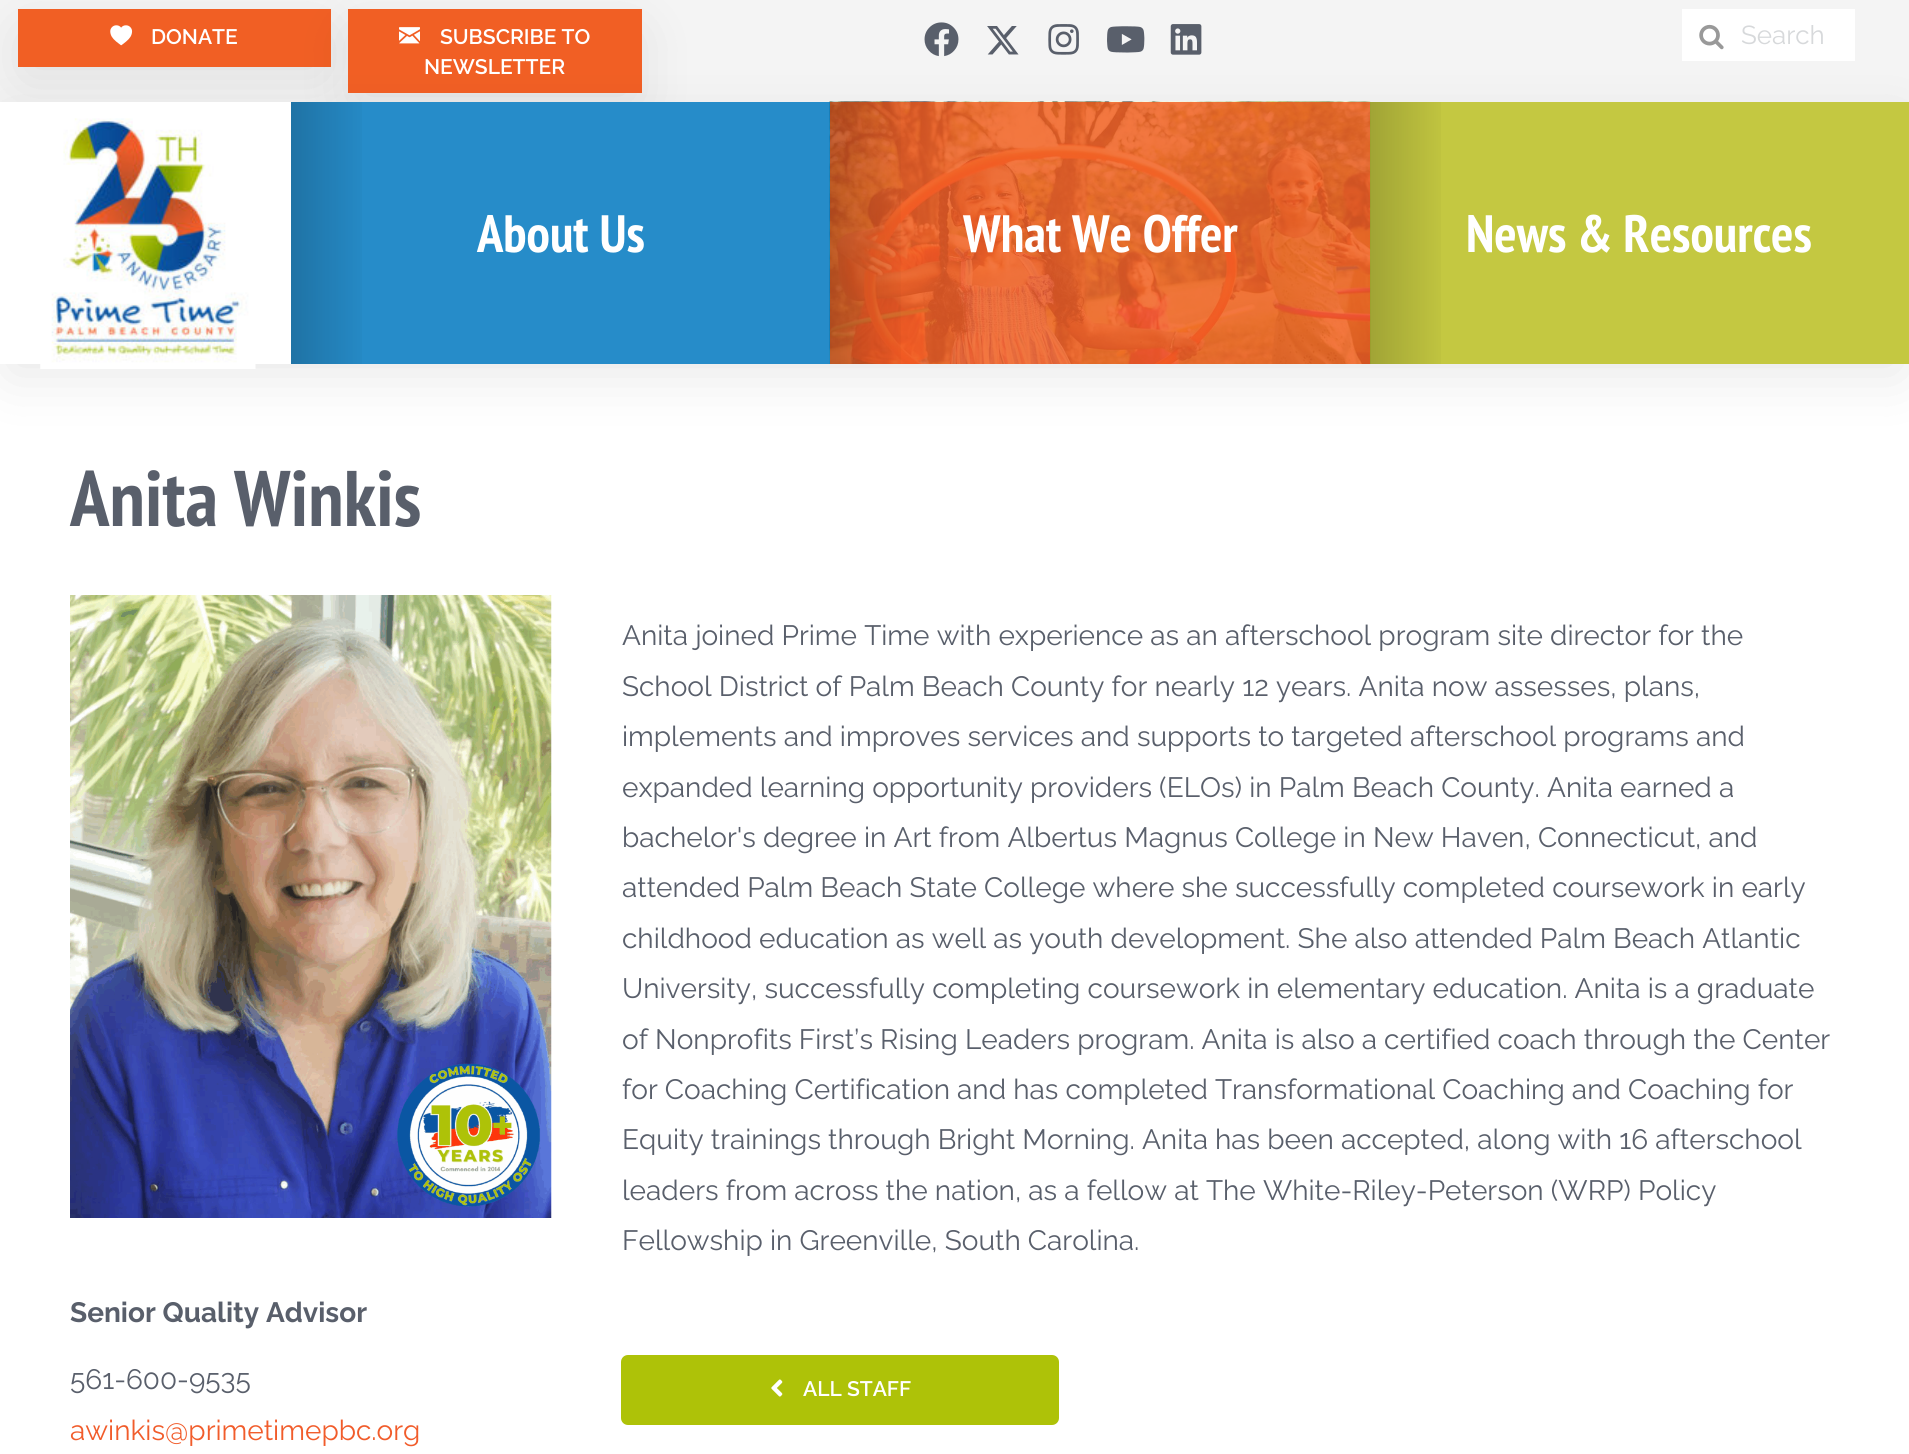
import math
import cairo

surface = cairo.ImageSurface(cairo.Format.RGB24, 1909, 1454)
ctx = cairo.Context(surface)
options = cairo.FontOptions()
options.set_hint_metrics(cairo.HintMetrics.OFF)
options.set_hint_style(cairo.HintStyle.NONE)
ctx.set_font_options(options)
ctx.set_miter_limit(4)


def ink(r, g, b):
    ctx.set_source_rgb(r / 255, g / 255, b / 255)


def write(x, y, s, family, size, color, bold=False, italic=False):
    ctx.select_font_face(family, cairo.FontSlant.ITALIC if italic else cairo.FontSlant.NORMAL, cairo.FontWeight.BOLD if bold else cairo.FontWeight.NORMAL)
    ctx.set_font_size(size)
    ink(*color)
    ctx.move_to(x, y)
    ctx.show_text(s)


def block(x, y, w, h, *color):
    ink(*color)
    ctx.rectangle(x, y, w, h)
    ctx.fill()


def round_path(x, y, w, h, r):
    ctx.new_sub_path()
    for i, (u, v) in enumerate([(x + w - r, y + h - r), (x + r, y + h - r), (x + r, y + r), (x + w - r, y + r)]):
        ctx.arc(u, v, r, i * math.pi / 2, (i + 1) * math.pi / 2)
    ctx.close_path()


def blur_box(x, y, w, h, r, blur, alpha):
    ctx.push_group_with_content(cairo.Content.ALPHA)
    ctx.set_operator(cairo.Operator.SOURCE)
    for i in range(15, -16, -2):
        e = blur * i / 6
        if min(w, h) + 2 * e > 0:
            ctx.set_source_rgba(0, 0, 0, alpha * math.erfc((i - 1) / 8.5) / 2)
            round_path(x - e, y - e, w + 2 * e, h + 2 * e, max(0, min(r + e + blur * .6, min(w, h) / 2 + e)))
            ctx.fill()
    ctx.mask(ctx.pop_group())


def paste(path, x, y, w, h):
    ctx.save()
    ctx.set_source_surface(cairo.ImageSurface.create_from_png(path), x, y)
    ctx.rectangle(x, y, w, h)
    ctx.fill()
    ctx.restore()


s1 = dict(family="Raleway SemiBold", size=21, color=(255, 255, 255))
s2 = dict(family="Raleway", size=26, color=(215, 217, 219))
s3 = dict(family="PT Sans Narrow", size=52.5, color=(255, 255, 255), bold=True)
s4 = dict(family="PT Sans Narrow", size=78.75, color=(89, 95, 107), bold=True)
s5 = dict(family="Raleway", size=28, color=(89, 95, 107), bold=True)
s6 = dict(family="Raleway", size=28, color=(89, 95, 107))
s7 = dict(family="Raleway", size=28, color=(241, 92, 43))

ink(255, 255, 255)
ctx.paint()
block(0, 0, 1909, 102, 244, 244, 244)
ink(0, 0, 0)
blur_box(26, 35, 296, 40, 0, 29, 0.1)
block(18, 9, 313, 58, 241, 95, 36)
paste("pic1.png", 110, 25, 23, 21)
write(151, 44, "DONATE", **s1)
ink(0, 0, 0)
blur_box(357, 35, 277, 67, 0, 29, 0.1)
block(348, 9, 294, 84, 241, 95, 36)
paste("pic2.png", 399, 27, 21, 17)
write(440, 44, "SUBSCRIBE TO", **s1)
write(424, 74, "NEWSLETTER", **s1)
paste("pic3.png", 924, 22, 35, 35)
paste("pic4.png", 987, 26, 32, 29)
paste("pic5.png", 1048, 24, 31, 31)
paste("pic6.png", 1107, 26, 38, 27)
paste("pic7.png", 1170, 24, 32, 31)
block(1682, 9, 173, 52, 255, 255, 255)
paste("pic8.png", 1699, 24, 25, 26)
write(1741, 44, "Search", **s2)
ink(0, 0, 0)
blur_box(9, 128, 1892, 245, 0, 29, 0.1)
block(0, 102, 1909, 262, 255, 255, 255)
paste("pic9.png", 40, 118, 216, 251)
paste("pic10.png", 829, 101, 542, 263)
ctx.set_source_rgba(0, 0.471, 0.753, 0.85)
ctx.rectangle(291, 102, 539, 262)
ctx.fill()
gradient = cairo.LinearGradient(291, 233, 830, 233)
gradient.add_color_stop_rgba(0, 0, 0, 0, 0.18)
gradient.add_color_stop_rgba(0.15, 0, 0, 0, 0)
gradient.add_color_stop_rgba(1, 0, 0, 0, 0)
ctx.set_source(gradient)
ctx.rectangle(291, 102, 71, 262)
ctx.fill()
write(477, 252, "About Us", **s3)
gradient = cairo.LinearGradient(830, 233, 1370, 233)
gradient.add_color_stop_rgba(0, 0, 0, 0, 0.18)
gradient.add_color_stop_rgba(0.15, 0, 0, 0, 0)
gradient.add_color_stop_rgba(1, 0, 0, 0, 0)
ctx.set_source(gradient)
ctx.rectangle(830, 102, 71, 262)
ctx.fill()
write(963, 252, "What We Offer", **s3)
ctx.set_source_rgba(0.729, 0.749, 0.125, 0.85)
ctx.rectangle(1370, 102, 539, 262)
ctx.fill()
gradient = cairo.LinearGradient(1370, 233, 1909, 233)
gradient.add_color_stop_rgba(0, 0, 0, 0, 0.18)
gradient.add_color_stop_rgba(0.15, 0, 0, 0, 0)
gradient.add_color_stop_rgba(1, 0, 0, 0, 0)
ctx.set_source(gradient)
ctx.rectangle(1370, 102, 71, 262)
ctx.fill()
write(1466, 252, "News & Resources", **s3)
write(70, 526, "Anita Winkis", **s4)
paste("pic11.png", 70, 595, 482, 623)
write(70, 1322, "Senior Quality Advisor", **s5)
write(70, 1389, "561-600-9535", **s6)
write(70, 1440, "awinkis@primetimepbc.org", **s7)
write(622, 645, "Anita joined Prime Time with experience as an afterschool program site director for the", **s6)
write(622, 696, "School District of Palm Beach County for nearly 12 years. Anita now assesses, plans,", **s6)
write(622, 746, "implements and improves services and supports to targeted afterschool programs and", **s6)
write(622, 797, "expanded learning opportunity providers (ELOs) in Palm Beach County. Anita earned a", **s6)
write(622, 847, "bachelor's degree in Art from Albertus Magnus College in New Haven, Connecticut, and", **s6)
write(622, 897, "attended Palm Beach State College where she successfully completed coursework in early", **s6)
write(622, 948, "childhood education as well as youth development. She also attended Palm Beach Atlantic", **s6)
write(622, 998, "University, successfully completing coursework in elementary education. Anita is a graduate", **s6)
write(622, 1049, "of Nonprofits First’s Rising Leaders program. Anita is also a certified coach through the Center", **s6)
write(622, 1099, "for Coaching Certification and has completed Transformational Coaching and Coaching for", **s6)
write(622, 1149, "Equity trainings through Bright Morning. Anita has been accepted, along with 16 afterschool", **s6)
write(622, 1200, "leaders from across the nation, as a fellow at The White-Riley-Peterson (WRP) Policy", **s6)
write(622, 1250, "Fellowship in Greenville, South Carolina.", **s6)
ink(174, 194, 8)
round_path(621, 1355, 438, 70, 7)
ctx.fill()
paste("pic12.png", 771, 1379, 12, 18)
write(803, 1396, "ALL STAFF", **s1)
surface.write_to_png("screenshot.png")
